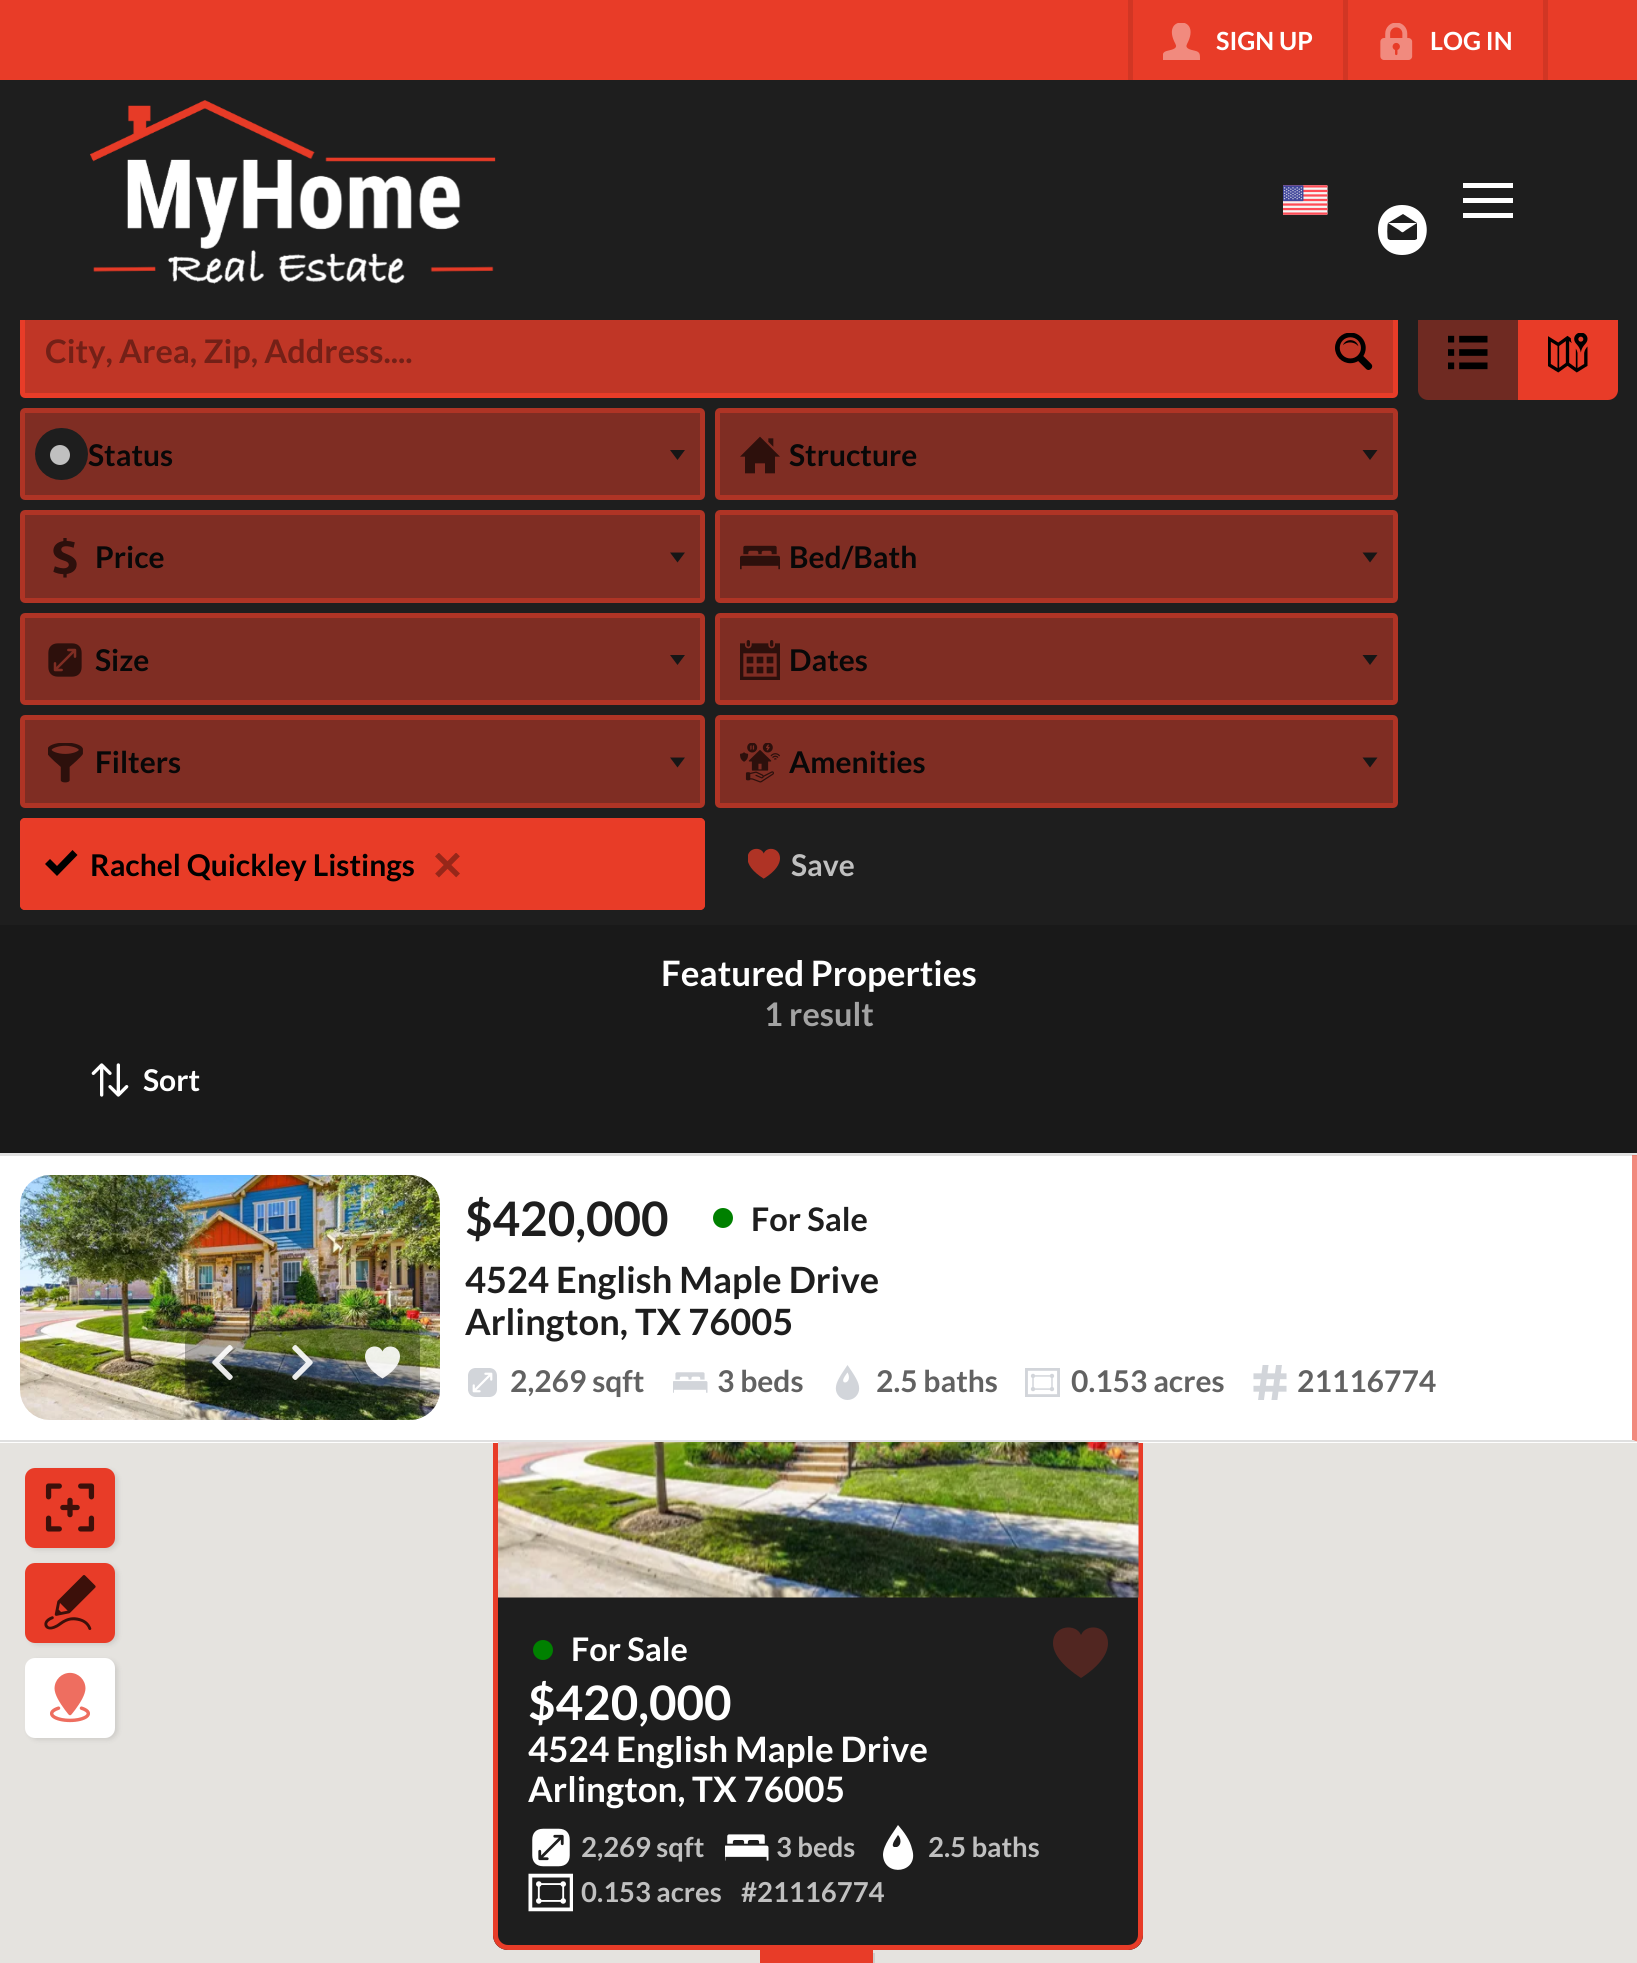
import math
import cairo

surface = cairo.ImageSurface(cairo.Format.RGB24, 1637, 1963)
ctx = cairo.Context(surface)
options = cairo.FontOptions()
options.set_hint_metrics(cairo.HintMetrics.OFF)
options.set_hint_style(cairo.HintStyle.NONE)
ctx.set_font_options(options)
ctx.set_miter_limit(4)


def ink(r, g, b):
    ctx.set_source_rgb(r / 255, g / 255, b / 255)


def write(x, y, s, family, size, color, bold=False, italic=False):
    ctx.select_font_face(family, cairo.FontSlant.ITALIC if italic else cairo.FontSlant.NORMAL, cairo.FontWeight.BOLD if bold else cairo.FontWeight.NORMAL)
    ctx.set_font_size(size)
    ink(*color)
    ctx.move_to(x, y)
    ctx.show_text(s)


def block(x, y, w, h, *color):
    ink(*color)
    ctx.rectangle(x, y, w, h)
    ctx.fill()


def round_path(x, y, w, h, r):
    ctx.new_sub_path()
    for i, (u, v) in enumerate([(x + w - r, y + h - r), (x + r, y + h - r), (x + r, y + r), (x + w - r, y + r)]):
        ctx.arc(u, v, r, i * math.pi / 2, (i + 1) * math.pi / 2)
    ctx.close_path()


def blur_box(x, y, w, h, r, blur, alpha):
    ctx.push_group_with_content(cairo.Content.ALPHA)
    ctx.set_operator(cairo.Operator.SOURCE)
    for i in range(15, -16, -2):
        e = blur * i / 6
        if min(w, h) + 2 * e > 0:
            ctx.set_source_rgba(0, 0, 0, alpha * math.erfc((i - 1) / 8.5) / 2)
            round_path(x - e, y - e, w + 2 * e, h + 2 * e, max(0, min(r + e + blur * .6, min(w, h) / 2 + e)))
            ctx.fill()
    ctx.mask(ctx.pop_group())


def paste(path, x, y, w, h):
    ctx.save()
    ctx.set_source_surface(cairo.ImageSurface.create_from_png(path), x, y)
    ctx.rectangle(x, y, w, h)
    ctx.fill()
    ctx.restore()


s1 = dict(family="Lato", size=25, color=(255, 255, 255), bold=True)
s2 = dict(family="Lato", size=32.5, color=(115, 32, 23), bold=True)
s3 = dict(family="Lato", size=30, color=(8, 8, 8), bold=True)
s4 = dict(family="Lato", size=30, color=(0, 0, 0), bold=True)
s5 = dict(family="Lato", size=30, color=(192, 192, 192), bold=True)
s6 = dict(family="Lato", size=35, color=(255, 255, 255), bold=True)
s7 = dict(family="Lato", size=32.5, color=(163, 163, 163), bold=True)
s8 = dict(family="Lato", size=30, color=(255, 255, 255), bold=True)
s9 = dict(family="Lato", size=47.5, color=(30, 30, 30), bold=True)
s10 = dict(family="Lato", size=32.5, color=(30, 30, 30), bold=True)
s11 = dict(family="Lato", size=36.25, color=(30, 30, 30), bold=True)
s12 = dict(family="Lato", size=30, color=(98, 98, 98), bold=True)
s13 = dict(family="Lato", size=32.5, color=(255, 255, 255), bold=True)
s14 = dict(family="Lato", size=47.5, color=(255, 255, 255), bold=True)
s15 = dict(family="Lato", size=27.5, color=(192, 192, 192), bold=True)

ink(30, 30, 30)
ctx.paint()
block(0, 0, 1637, 80, 232, 60, 40)
block(1543, 0, 5, 80, 209, 54, 36)
block(1128, 0, 5, 80, 209, 54, 36)
paste("pic1.png", 1163, 23, 37, 37)
write(1216, 50, "SIGN UP", **s1)
block(1343, 0, 5, 80, 209, 54, 36)
paste("pic2.png", 1380, 23, 33, 37)
write(1430, 50, "LOG IN", **s1)
ink(192, 54, 38)
round_path(22.5, 307.5, 1373, 88, 2.5)
ctx.fill_preserve()
ink(232, 60, 40)
ctx.set_line_width(5)
ctx.stroke()
ink(111, 42, 34)
ctx.new_path()
ctx.move_to(1428, 305)
ctx.line_to(1518, 305)
ctx.line_to(1518, 400)
ctx.line_to(1428, 400)
ctx.curve_to(1422.5, 400, 1418, 395.5, 1418, 390)
ctx.line_to(1418, 315)
ctx.curve_to(1418, 309.5, 1422.5, 305, 1428, 305)
ctx.close_path()
ctx.fill()
ink(232, 60, 40)
ctx.new_path()
ctx.move_to(1518, 305)
ctx.line_to(1608, 305)
ctx.curve_to(1613.5, 305, 1618, 309.5, 1618, 315)
ctx.line_to(1618, 390)
ctx.curve_to(1618, 395.5, 1613.5, 400, 1608, 400)
ctx.line_to(1518, 400)
ctx.close_path()
ctx.fill()
block(20, 305, 1598, 15, 30, 30, 30)
paste("pic3.png", 90, 100, 406, 184)
paste("pic4.png", 1283, 185, 45, 30)
block(1463, 183, 50, 5, 255, 255, 255)
block(1463, 198, 50, 5, 255, 255, 255)
block(1463, 213, 50, 5, 255, 255, 255)
ctx.new_path()
ctx.move_to(1402, 205)
ctx.curve_to(1370, 205, 1370, 255, 1402, 255)
ctx.curve_to(1435, 255, 1435, 205, 1402, 205)
ctx.close_path()
ctx.move_to(1403, 214)
ctx.line_to(1417, 223)
ctx.line_to(1388, 223)
ctx.close_path()
ctx.move_to(1417, 238)
ctx.line_to(1417, 239)
ctx.line_to(1415, 240)
ctx.line_to(1390, 240)
ctx.line_to(1388, 239)
ctx.curve_to(1387, 238, 1387, 225, 1388, 223)
ctx.line_to(1399, 230)
ctx.curve_to(1403, 233, 1402, 233, 1406, 230)
ctx.line_to(1417, 223)
ctx.close_path()
ctx.fill()
write(45, 363, "City, Area, Zip, Address....", **s2)
paste("pic5.png", 1335, 333, 38, 37)
ink(127, 45, 35)
round_path(22.5, 410.5, 680, 87, 2.5)
ctx.fill_preserve()
ink(175, 52, 37)
ctx.stroke()
round_path(47.5, 440.5, 28, 27, 13.5)
ink(30, 30, 30)
ctx.set_line_width(25)
ctx.stroke()
ink(192, 192, 192)
ctx.arc(60, 455, 10, 0, 2 * math.pi)
ctx.fill()
write(88, 466, "Status", **s3)
ink(22, 22, 22)
ctx.new_path()
ctx.move_to(670, 450)
ctx.line_to(685, 450)
ctx.line_to(677.5, 460)
ctx.close_path()
ctx.fill()
ink(127, 45, 35)
round_path(717.5, 410.5, 678, 87, 2.5)
ctx.fill_preserve()
ink(175, 52, 37)
ctx.set_line_width(5)
ctx.stroke()
paste("pic6.png", 740, 436, 40, 38)
write(789, 466, "Structure", **s3)
ink(22, 22, 22)
ctx.new_path()
ctx.move_to(1362.5, 450)
ctx.line_to(1377.5, 450)
ctx.line_to(1370, 460)
ctx.close_path()
ctx.fill()
ink(127, 45, 35)
round_path(22.5, 512.5, 680, 88, 2.5)
ctx.fill_preserve()
ink(175, 52, 37)
ctx.stroke()
paste("pic7.png", 53, 538, 24, 40)
write(95, 568, "Price", **s3)
ink(22, 22, 22)
ctx.new_path()
ctx.move_to(670, 552.5)
ctx.line_to(685, 552.5)
ctx.line_to(677.5, 562.5)
ctx.close_path()
ctx.fill()
ink(127, 45, 35)
round_path(717.5, 512.5, 678, 88, 2.5)
ctx.fill_preserve()
ink(175, 52, 37)
ctx.stroke()
paste("pic8.png", 740, 545, 40, 25)
write(789, 568, "Bed/Bath", **s3)
ink(22, 22, 22)
ctx.new_path()
ctx.move_to(1362.5, 552.5)
ctx.line_to(1377.5, 552.5)
ctx.line_to(1370, 562.5)
ctx.close_path()
ctx.fill()
ink(127, 45, 35)
round_path(22.5, 615.5, 680, 87, 2.5)
ctx.fill_preserve()
ink(175, 52, 37)
ctx.stroke()
paste("pic9.png", 48, 643, 34, 34)
write(95, 671, "Size", **s3)
ink(22, 22, 22)
ctx.new_path()
ctx.move_to(670, 655)
ctx.line_to(685, 655)
ctx.line_to(677.5, 665)
ctx.close_path()
ctx.fill()
ink(127, 45, 35)
round_path(717.5, 615.5, 678, 87, 2.5)
ctx.fill_preserve()
ink(175, 52, 37)
ctx.stroke()
paste("pic10.png", 740, 640, 40, 40)
write(789, 671, "Dates", **s3)
ink(22, 22, 22)
ctx.new_path()
ctx.move_to(1362.5, 655)
ctx.line_to(1377.5, 655)
ctx.line_to(1370, 665)
ctx.close_path()
ctx.fill()
ink(127, 45, 35)
round_path(22.5, 717.5, 680, 88, 2.5)
ctx.fill_preserve()
ink(175, 52, 37)
ctx.stroke()
paste("pic11.png", 48, 743, 35, 40)
write(95, 773, "Filters", **s3)
ink(22, 22, 22)
ctx.new_path()
ctx.move_to(670, 757.5)
ctx.line_to(685, 757.5)
ctx.line_to(677.5, 767.5)
ctx.close_path()
ctx.fill()
ink(127, 45, 35)
round_path(717.5, 717.5, 678, 88, 2.5)
ctx.fill_preserve()
ink(175, 52, 37)
ctx.stroke()
paste("pic12.png", 740, 743, 40, 40)
write(789, 773, "Amenities", **s3)
ink(22, 22, 22)
ctx.new_path()
ctx.move_to(1362.5, 757.5)
ctx.line_to(1377.5, 757.5)
ctx.line_to(1370, 767.5)
ctx.close_path()
ctx.fill()
ink(232, 60, 40)
round_path(20, 818, 685, 92, 5)
ctx.fill()
ctx.set_source_rgba(0.91, 0.235, 0.157, 0.67)
round_path(22.5, 820.5, 680, 87, 2.5)
ctx.fill_preserve()
ink(232, 60, 40)
ctx.stroke()
ink(0, 0, 0)
ctx.new_path()
ctx.move_to(72.5, 850)
ctx.line_to(57, 866)
ctx.line_to(50, 859)
ctx.line_to(45, 864)
ctx.line_to(57, 876)
ctx.line_to(77.5, 855)
ctx.close_path()
ctx.fill()
write(90, 876, "Rachel Quickley Listings", **s4)
paste("pic13.png", 435, 853, 25, 25)
paste("pic14.png", 748, 848, 32, 31)
write(791, 876, "Save", **s5)
paste("pic15.png", 1448, 335, 40, 35)
paste("pic16.png", 1548, 333, 40, 40)
block(0, 925, 1637, 228, 25, 25, 25)
write(661, 986, "Featured Properties", **s6)
write(764, 1026, "1 result", **s7)
paste("pic17.png", 91, 1063, 38, 34)
write(143, 1091, "Sort", **s8)
block(0, 1156, 1637, 287, 255, 255, 255)
block(0, 1153, 1637, 3, 224, 224, 224)
ctx.set_source_rgba(0.91, 0.235, 0.157, 0.6)
ctx.new_path()
ctx.move_to(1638, 1155)
ctx.line_to(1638, 1442)
ctx.line_to(1632, 1440)
ctx.line_to(1632, 1155)
ctx.close_path()
ctx.fill()
ink(224, 224, 224)
ctx.new_path()
ctx.move_to(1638, 1442)
ctx.line_to(0, 1442)
ctx.line_to(0, 1440)
ctx.line_to(1632, 1440)
ctx.close_path()
ctx.fill()
paste("pic18.png", 20, 1175, 420, 245)
ctx.set_source_rgba(0, 0, 0, 0.3)
round_path(185, 1325, 235, 75, 15)
ctx.fill()
paste("pic19.png", 212, 1345, 21, 35)
paste("pic20.png", 292, 1345, 21, 35)
ctx.set_source_rgba(1, 1, 1, 0.9)
ctx.new_path()
ctx.move_to(382.5, 1351.5)
ctx.curve_to(379.5, 1343.5, 365, 1345, 365, 1356.5)
ctx.curve_to(365, 1362.5, 369.5, 1370.5, 382.5, 1378.5)
ctx.curve_to(395.5, 1370.5, 400, 1362.5, 400, 1356.5)
ctx.curve_to(400, 1345, 385.5, 1343.5, 382.5, 1351.5)
ctx.close_path()
ctx.fill()
write(465, 1236, "$420,000", **s9)
ink(0, 128, 0)
ctx.new_path()
ctx.arc(723, 1218, 10, 0, 2 * math.pi)
ctx.fill()
write(751, 1231, "For Sale", **s10)
write(465, 1293, "4524 English Maple Drive", **s11)
write(465, 1335, "Arlington, TX 76005", **s11)
paste("pic21.png", 468, 1368, 29, 29)
write(510, 1392, "2,269 sqft", **s12)
paste("pic22.png", 673, 1372, 35, 21)
write(717, 1392, "3 beds", **s12)
paste("pic23.png", 835, 1365, 25, 35)
write(876, 1392, "2.5 baths", **s12)
paste("pic24.png", 1025, 1368, 35, 29)
write(1071, 1392, "0.153 acres", **s12)
paste("pic25.png", 1253, 1365, 34, 35)
write(1297, 1392, "21116774", **s12)
block(0, 1443, 1637, 520, 229, 227, 223)
ink(0, 0, 0)
blur_box(28, 1470, 90, 80, 10, 2.5, 0.1)
ink(232, 60, 40)
round_path(25, 1468, 90, 80, 10)
ctx.fill()
paste("pic26.png", 45, 1483, 50, 49)
ink(0, 0, 0)
blur_box(28, 1565, 90, 80, 10, 2.5, 0.1)
ink(232, 60, 40)
round_path(25, 1563, 90, 80, 10)
ctx.fill()
paste("pic27.png", 44, 1575, 52, 55)
ink(0, 0, 0)
blur_box(28, 1660, 90, 80, 10, 2.5, 0.1)
ink(255, 255, 255)
round_path(25, 1658, 90, 80, 10)
ctx.fill()
paste("pic28.png", 50, 1672, 40, 51)
ink(30, 30, 30)
ctx.new_path()
ctx.move_to(493, 1443)
ctx.line_to(1143, 1443)
ctx.line_to(1143, 1935)
ctx.curve_to(1143, 1943.5, 1136.5, 1950, 1128, 1950)
ctx.line_to(508, 1950)
ctx.curve_to(499.5, 1950, 493, 1943.5, 493, 1935)
ctx.close_path()
ctx.fill()
ctx.save()
ctx.rectangle(0, 1443, 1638, 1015)
ctx.clip()
round_path(495.5, 1232.5, 645, 715, 12.5)
ink(232, 60, 40)
ctx.stroke()
ctx.restore()
paste("pic29.png", 498, 1442, 641, 156)
ink(0, 128, 0)
ctx.arc(543, 1650, 10, 0, 2 * math.pi)
ctx.fill()
write(571, 1661, "For Sale", **s13)
write(528, 1720, "$420,000", **s14)
write(528, 1762, "4524 English Maple Drive", **s6)
write(528, 1802, "Arlington, TX 76005", **s6)
ink(81, 38, 33)
ctx.new_path()
ctx.move_to(1081, 1635)
ctx.curve_to(1076, 1623, 1053, 1625, 1053, 1643)
ctx.curve_to(1053, 1653, 1061, 1665, 1081, 1678)
ctx.curve_to(1101, 1665, 1108, 1653, 1108, 1643)
ctx.curve_to(1108, 1625, 1086, 1623, 1081, 1635)
ctx.close_path()
ctx.fill()
paste("pic30.png", 532, 1828, 38, 39)
write(581, 1857, "2,269 sqft", **s15)
paste("pic31.png", 725, 1834, 44, 27)
write(776, 1857, "3 beds", **s15)
ink(255, 255, 255)
ctx.new_path()
ctx.move_to(898, 1825)
ctx.curve_to(893, 1833, 883, 1845, 883, 1855)
ctx.curve_to(884, 1878, 920, 1873, 912, 1849)
ctx.curve_to(910, 1840, 904, 1832, 898, 1825)
ctx.close_path()
ctx.move_to(898, 1835)
ctx.curve_to(901, 1838, 902, 1845, 897, 1847)
ctx.line_to(894, 1847)
ctx.curve_to(890, 1845, 897, 1837, 898, 1835)
ctx.close_path()
ctx.fill()
write(928, 1857, "2.5 baths", **s15)
paste("pic32.png", 528, 1873, 45, 39)
write(581, 1902, "0.153 acres", **s15)
write(741, 1902, "#21116774", **s15)
ink(206, 204, 201)
ctx.new_path()
ctx.move_to(765, 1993)
ctx.curve_to(769, 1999, 775, 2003, 783, 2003)
ctx.line_to(855, 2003)
ctx.curve_to(866, 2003, 875, 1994, 875, 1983)
ctx.line_to(875, 1953)
ctx.line_to(873, 1953)
ctx.line_to(873, 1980)
ctx.curve_to(873, 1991, 865, 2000, 853, 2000)
ctx.line_to(781, 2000)
ctx.curve_to(775, 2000, 769, 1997, 765, 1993)
ctx.close_path()
ctx.fill()
block(760, 1950, 113, 13, 232, 60, 40)
surface.write_to_png("screenshot.png")
